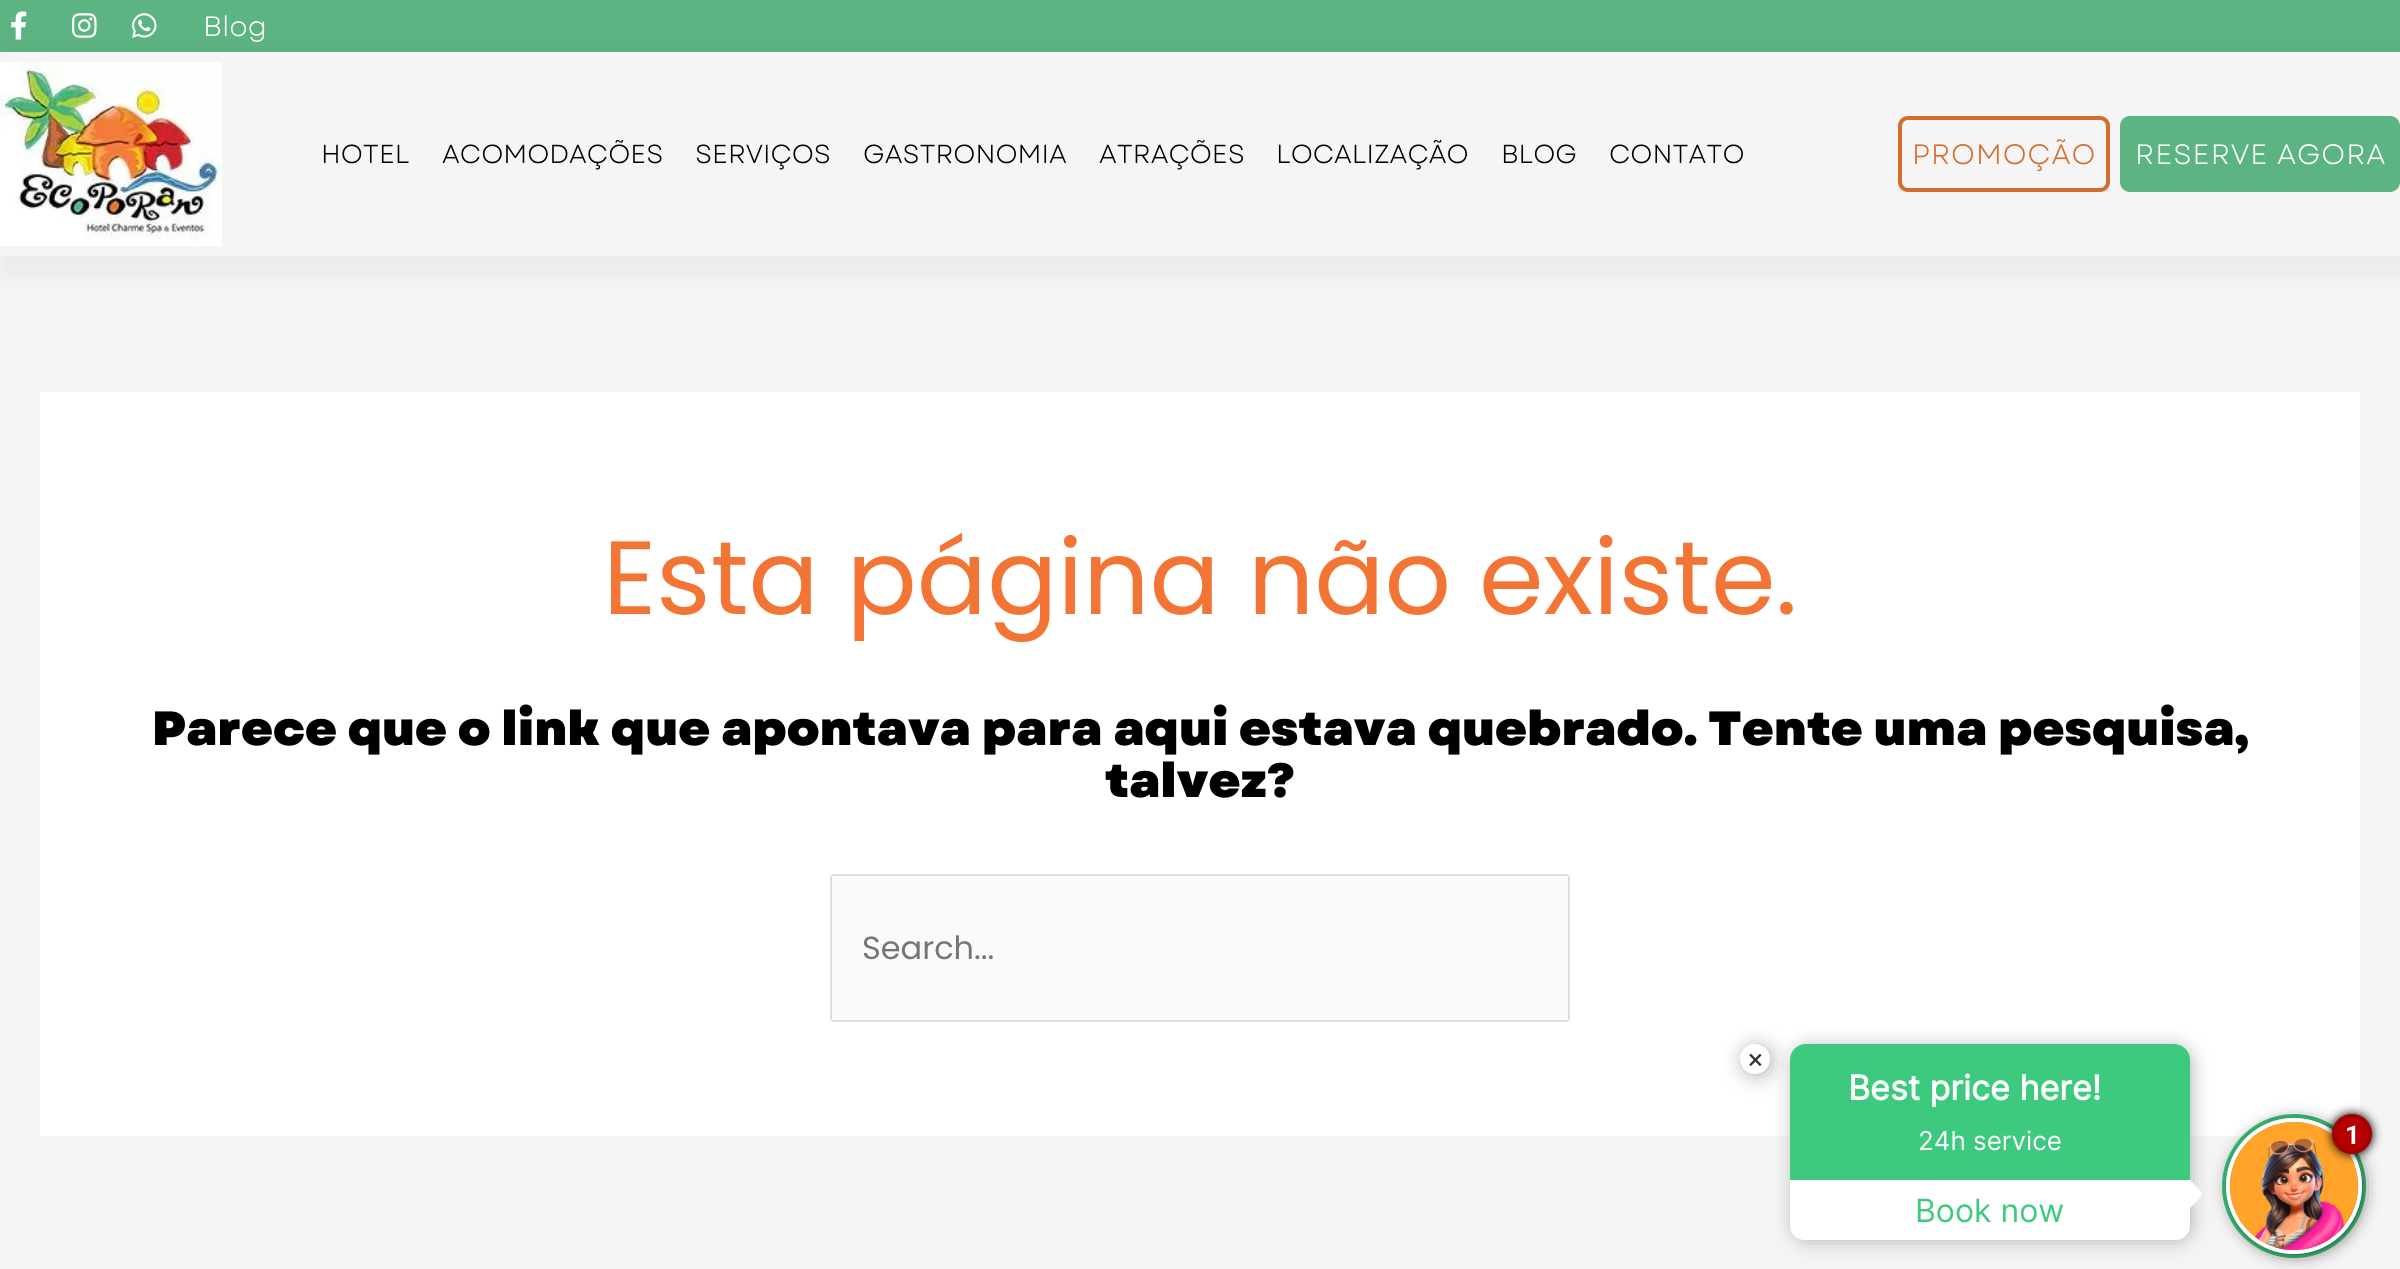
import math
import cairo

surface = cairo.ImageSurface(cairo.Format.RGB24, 2400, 1269)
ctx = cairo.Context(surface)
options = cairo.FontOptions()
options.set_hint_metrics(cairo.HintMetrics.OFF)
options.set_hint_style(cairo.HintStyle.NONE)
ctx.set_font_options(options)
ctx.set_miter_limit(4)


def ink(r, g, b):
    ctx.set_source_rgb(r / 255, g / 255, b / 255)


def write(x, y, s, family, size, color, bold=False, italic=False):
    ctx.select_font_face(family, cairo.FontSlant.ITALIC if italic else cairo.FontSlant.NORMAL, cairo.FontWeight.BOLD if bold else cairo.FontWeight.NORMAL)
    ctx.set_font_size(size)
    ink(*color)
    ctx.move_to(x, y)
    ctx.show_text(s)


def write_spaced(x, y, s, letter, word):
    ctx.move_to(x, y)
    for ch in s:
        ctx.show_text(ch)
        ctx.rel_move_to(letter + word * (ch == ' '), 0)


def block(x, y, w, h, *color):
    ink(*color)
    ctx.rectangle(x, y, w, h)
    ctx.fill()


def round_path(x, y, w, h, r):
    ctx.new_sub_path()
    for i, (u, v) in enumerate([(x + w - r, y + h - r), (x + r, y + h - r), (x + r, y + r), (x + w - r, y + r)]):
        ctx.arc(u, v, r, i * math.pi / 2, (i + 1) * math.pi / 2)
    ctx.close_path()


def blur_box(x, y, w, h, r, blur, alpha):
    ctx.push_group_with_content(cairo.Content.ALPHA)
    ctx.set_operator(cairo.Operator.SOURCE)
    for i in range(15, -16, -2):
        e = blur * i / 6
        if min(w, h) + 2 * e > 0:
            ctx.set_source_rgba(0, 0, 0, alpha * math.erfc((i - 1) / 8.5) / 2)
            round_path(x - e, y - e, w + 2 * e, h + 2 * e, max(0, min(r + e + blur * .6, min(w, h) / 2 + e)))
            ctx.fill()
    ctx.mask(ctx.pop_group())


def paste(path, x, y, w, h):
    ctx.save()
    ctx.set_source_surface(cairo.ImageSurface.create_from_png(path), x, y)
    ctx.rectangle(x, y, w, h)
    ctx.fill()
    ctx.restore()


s1 = dict(family="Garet", size=28, color=(255, 255, 255))
s2 = dict(family="Garet", size=26, color=(0, 0, 0))
s3 = dict(family="Poppins", size=104, color=(243, 117, 53))
s4 = dict(family="Garet Black", size=48, color=(0, 0, 0))
s5 = dict(family="Poppins", size=32, color=(117, 117, 117))
s6 = dict(family="Roboto", size=28, color=(51, 51, 51))
s7 = dict(family="Inter", size=34, color=(255, 255, 255), bold=True)
s8 = dict(family="Inter", size=26, color=(255, 255, 255))
s9 = dict(family="Inter", size=32, color=(62, 202, 126))
s10 = dict(family="Roboto", size=26, color=(255, 255, 255), bold=True)

ink(245, 245, 245)
ctx.paint()
block(0, 0, 2400, 52, 92, 180, 130)
paste("pic1.png", 11, 11, 16, 29)
paste("pic2.png", 72, 13, 25, 25)
paste("pic3.png", 132, 13, 25, 25)
write(203, 36, "Blog", **s1)
ctx.save()
ctx.set_fill_rule(cairo.FillRule.EVEN_ODD)
ctx.new_path()
ctx.move_to(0, 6)
ctx.line_to(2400, 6)
ctx.line_to(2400, 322)
ctx.line_to(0, 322)
ctx.close_path()
ctx.move_to(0, 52)
ctx.line_to(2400, 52)
ctx.line_to(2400, 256)
ctx.line_to(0, 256)
ctx.close_path()
ctx.clip()
ink(78, 78, 78)
blur_box(0, 52, 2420, 224, 0, 15, 0.07)
ctx.restore()
paste("pic4.png", 0, 62, 222, 184)
write(321, 163, "HOTEL", **s2)
write(442, 163, "ACOMODAÇÕES", **s2)
write(695, 163, "SERVIÇOS", **s2)
write(863, 163, "GASTRONOMIA", **s2)
write(1099, 163, "ATRAÇÕES", **s2)
write(1276, 163, "LOCALIZAÇÃO", **s2)
write(1501, 163, "BLOG", **s2)
write(1609, 163, "CONTATO", **s2)
round_path(1900, 118, 208, 72, 8)
ink(212, 108, 44)
ctx.set_line_width(4)
ctx.stroke()
ctx.set_font_size(28)
write_spaced(1912, 164, "PROMOÇÃO", 1, 0)
ink(92, 180, 130)
round_path(2122, 118, 276, 72, 8)
ctx.fill_preserve()
ctx.stroke()
ink(255, 255, 255)
write_spaced(2135, 164, "RESERVE AGORA", 1, 0)
block(40, 392, 2320, 744, 255, 255, 255)
write(603, 614, "Esta página não existe.", **s3)
write(152, 745, "Parece que o link que apontava para aqui estava quebrado. Tente uma pesquisa,", **s4)
write(1105, 797, "talvez?", **s4)
ink(250, 250, 250)
round_path(831, 875, 738, 146, 3)
ctx.fill_preserve()
ink(221, 221, 221)
ctx.set_line_width(2)
ctx.stroke()
write(862, 959, "Search...", **s5)
ctx.new_path()
ctx.arc(2294, 1186, 70, 0, 2 * math.pi)
ink(62, 202, 126)
ctx.set_line_width(4)
ctx.stroke()
ink(0, 0, 0)
blur_box(2234, 1126, 124, 124, 62, 10, 1)
ctx.arc(2294, 1186, 66, 0, 2 * math.pi)
ink(255, 255, 255)
ctx.stroke()
ink(170, 170, 170)
blur_box(1794, 1048, 396, 192, 14, 10, 1)
ink(62, 202, 126)
round_path(1790, 1044, 400, 196, 16)
ctx.fill()
ink(170, 170, 170)
blur_box(1744, 1048, 26, 26, 13, 10, 1)
ink(255, 255, 255)
ctx.arc(1755, 1059, 15, 0, 2 * math.pi)
ctx.fill()
write(1748, 1069, "×", **s6)
write(1848, 1100, "Best price here!", **s7)
write(1918, 1150, "24h service", **s8)
ctx.new_path()
ctx.move_to(1790, 1180)
ctx.line_to(2190, 1180)
ctx.line_to(2190, 1226)
ctx.curve_to(2190, 1233.5, 2183.5, 1240, 2176, 1240)
ctx.line_to(1804, 1240)
ctx.curve_to(1796.5, 1240, 1790, 1233.5, 1790, 1226)
ctx.close_path()
ctx.fill()
ctx.new_path()
ctx.move_to(2190, 1180)
ctx.line_to(2200, 1190)
ctx.curve_to(2202, 1192, 2202, 1196, 2200, 1198)
ctx.line_to(2190, 1208)
ctx.line_to(2176, 1194)
ctx.close_path()
ctx.fill()
write(1915, 1222, "Book now", **s9)
ink(255, 164, 41)
ctx.new_path()
ctx.arc(2294, 1186, 64, 0, 2 * math.pi)
ctx.fill()
paste("pic5.png", 2255, 1138, 89, 112)
ink(0, 0, 0)
blur_box(2332, 1114, 40, 40, 20, 5, 1)
ink(182, 0, 0)
ctx.arc(2352, 1134, 18, 0, 2 * math.pi)
ctx.fill_preserve()
ink(163, 0, 0)
ctx.stroke()
write(2345, 1144, "1", **s10)
surface.write_to_png("screenshot.png")
